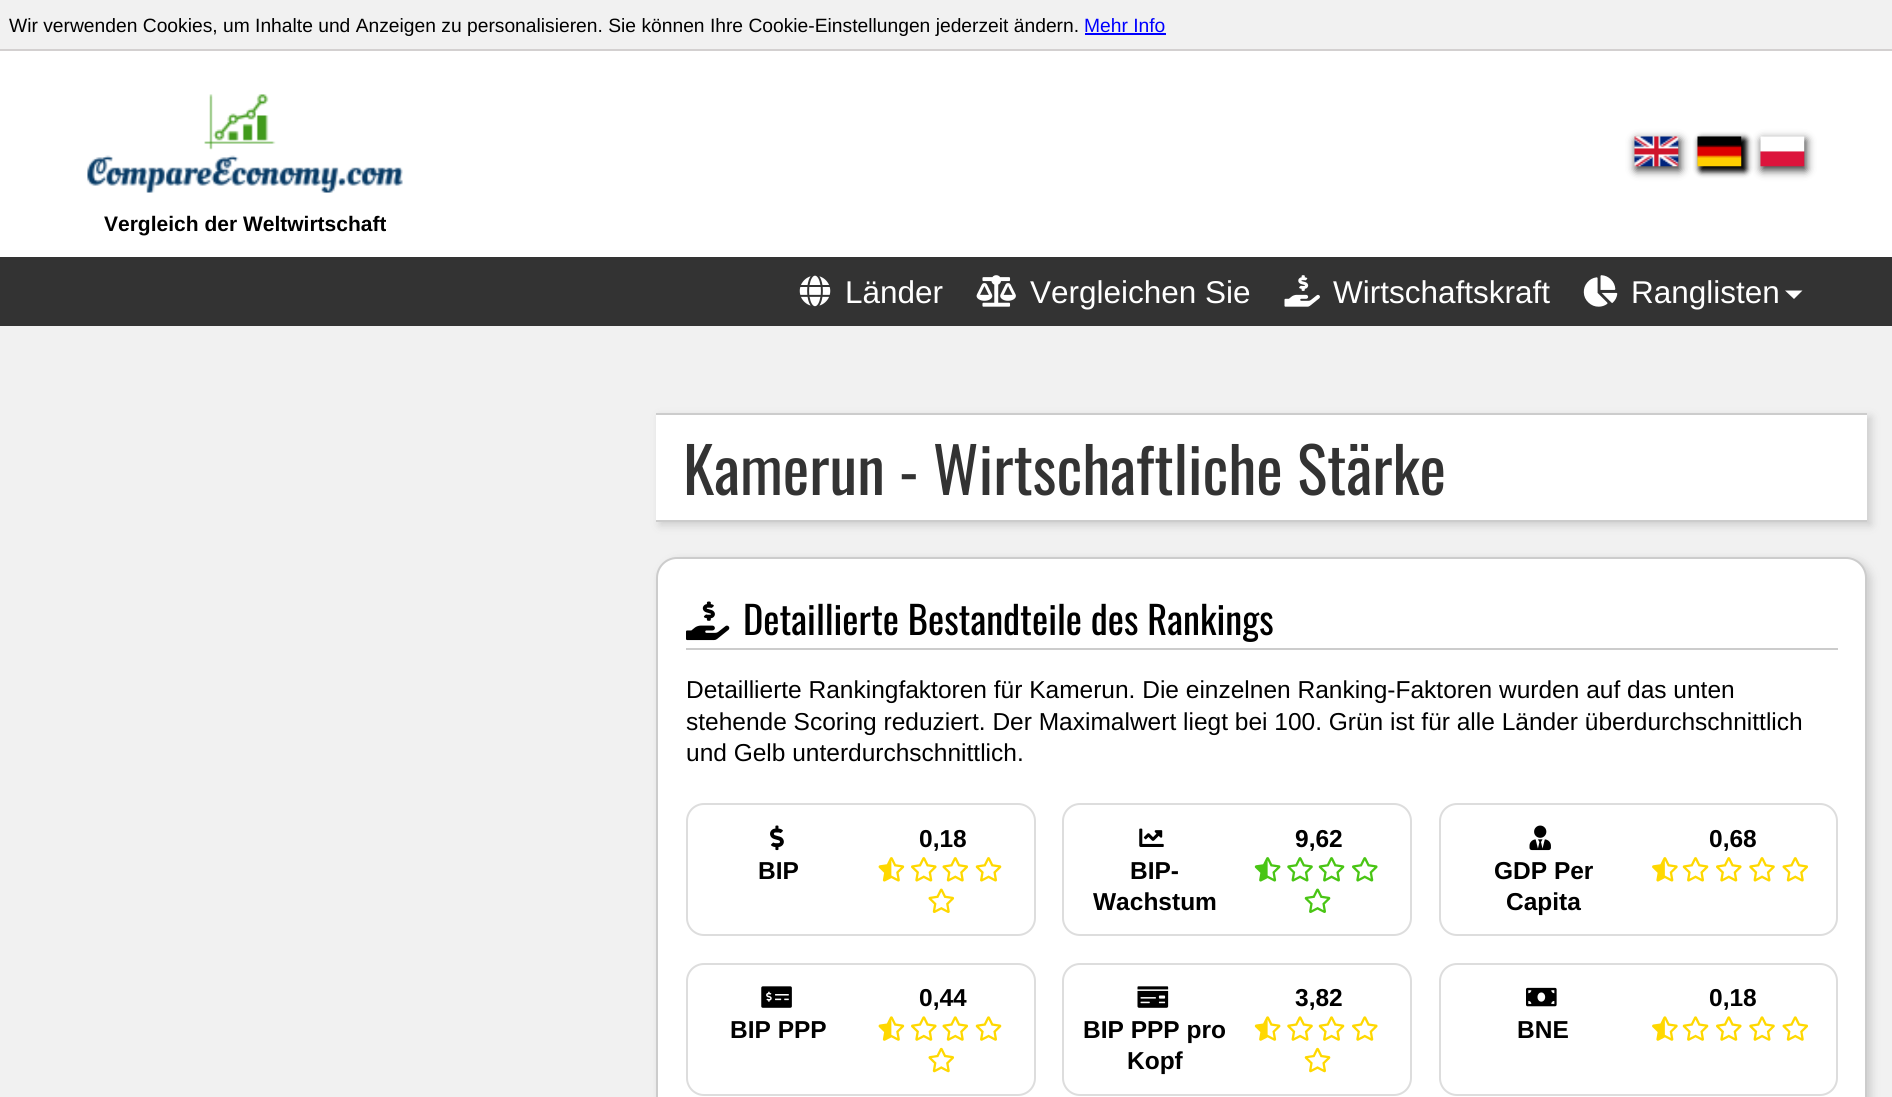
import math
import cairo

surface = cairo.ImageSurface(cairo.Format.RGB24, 1892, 1097)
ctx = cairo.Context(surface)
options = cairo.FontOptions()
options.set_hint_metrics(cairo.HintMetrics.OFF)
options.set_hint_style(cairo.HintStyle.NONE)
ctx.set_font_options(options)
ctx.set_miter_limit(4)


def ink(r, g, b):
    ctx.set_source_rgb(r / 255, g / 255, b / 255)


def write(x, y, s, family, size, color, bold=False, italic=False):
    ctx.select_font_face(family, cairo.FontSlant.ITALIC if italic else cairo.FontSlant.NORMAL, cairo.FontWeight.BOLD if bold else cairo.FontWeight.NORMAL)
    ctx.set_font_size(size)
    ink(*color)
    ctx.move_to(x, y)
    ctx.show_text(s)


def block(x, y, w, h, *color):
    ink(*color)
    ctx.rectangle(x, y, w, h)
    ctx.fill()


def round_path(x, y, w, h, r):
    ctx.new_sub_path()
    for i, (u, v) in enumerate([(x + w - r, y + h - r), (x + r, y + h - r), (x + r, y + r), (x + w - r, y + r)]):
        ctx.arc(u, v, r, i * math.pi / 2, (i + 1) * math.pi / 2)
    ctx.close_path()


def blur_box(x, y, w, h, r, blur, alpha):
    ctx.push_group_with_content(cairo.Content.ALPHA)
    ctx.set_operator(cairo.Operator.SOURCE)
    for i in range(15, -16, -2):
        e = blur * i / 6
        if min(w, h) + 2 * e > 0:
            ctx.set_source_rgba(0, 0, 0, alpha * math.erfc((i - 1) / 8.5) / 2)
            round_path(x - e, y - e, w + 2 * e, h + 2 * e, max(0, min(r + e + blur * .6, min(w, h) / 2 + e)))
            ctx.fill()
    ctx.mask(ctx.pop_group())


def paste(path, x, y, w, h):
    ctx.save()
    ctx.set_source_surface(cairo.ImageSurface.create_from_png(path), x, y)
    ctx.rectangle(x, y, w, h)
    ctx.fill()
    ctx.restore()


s1 = dict(family="Liberation Sans", size=19.25, color=(0, 0, 0))
s2 = dict(family="Liberation Sans", size=19.25, color=(0, 0, 255))
s3 = dict(family="Liberation Sans", size=21, color=(0, 0, 0), bold=True)
s4 = dict(family="Liberation Sans", size=31.5, color=(255, 255, 255))
s5 = dict(family="Oswald", size=63, color=(51, 51, 51))
s6 = dict(family="Oswald", size=38.5, color=(0, 0, 0))
s7 = dict(family="Liberation Sans", size=24.5, color=(0, 0, 0))
s8 = dict(family="Liberation Sans", size=24.5, color=(0, 0, 0), bold=True)

ink(241, 241, 241)
ctx.paint()
block(0, 49, 1892, 2, 211, 208, 208)
write(9, 32, "Wir verwenden Cookies, um Inhalte und Anzeigen zu personalisieren. Sie können Ihre Cookie-Einstellungen jederzeit ändern.", **s1)
write(1084, 32, "Mehr Info", **s2)
block(1085, 33, 81, 2, 0, 0, 255)
block(0, 51, 1892, 206, 255, 255, 255)
ink(51, 51, 51)
blur_box(1636, 140, 44, 30, 0, 4.5, 1)
paste("pic1.png", 1634, 136, 45, 31)
ink(0, 0, 0)
blur_box(1701, 140, 44, 30, 0, 3.5, 1)
blur_box(1701, 140, 44, 30, 0, 3.5, 1)
paste("pic2.png", 1697, 136, 45, 31)
ink(51, 51, 51)
blur_box(1762, 140, 44, 30, 0, 4.5, 1)
paste("pic3.png", 1760, 136, 45, 31)
paste("pic4.png", 87, 94, 316, 99)
write(104, 231, "Vergleich der Weltwirtschaft", **s3)
block(0, 257, 1892, 69, 51, 51, 51)
paste("pic5.png", 799, 275, 32, 32)
write(845, 303, "Länder", **s4)
paste("pic6.png", 976, 275, 40, 32)
write(1030, 303, "Vergleichen Sie", **s4)
paste("pic7.png", 1284, 275, 36, 32)
write(1333, 303, "Wirtschaftskraft", **s4)
paste("pic8.png", 1583, 275, 35, 32)
write(1631, 303, "Ranglisten", **s4)
ctx.new_path()
ctx.move_to(1785, 290.5)
ctx.line_to(1802.5, 290.5)
ctx.line_to(1794, 299)
ctx.close_path()
ctx.fill()
ink(204, 204, 204)
blur_box(660, 417, 1211, 108, 0, 4.5, 1)
block(656, 415, 1211, 105, 255, 255, 255)
block(656, 413, 1211, 2, 204, 204, 204)
block(656, 520, 1211, 2, 204, 204, 204)
write(683, 495, "Kamerun - Wirtschaftliche Stärke", **s5)
ink(204, 204, 204)
blur_box(660, 560, 1211, 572, 21, 4.5, 1)
ink(255, 255, 255)
round_path(657, 558, 1209, 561, 20)
ctx.fill_preserve()
ink(204, 204, 204)
ctx.stroke()
block(686, 648, 1152, 2, 204, 204, 204)
paste("pic9.png", 686, 601, 44, 40)
write(743, 635, "Detaillierte Bestandteile des Rankings", **s6)
write(686, 698, "Detaillierte Rankingfaktoren für Kamerun. Die einzelnen Ranking-Faktoren wurden auf das unten", **s7)
write(686, 730, "stehende Scoring reduziert. Der Maximalwert liegt bei 100. Grün ist für alle Länder überdurchschnittlich", **s7)
write(686, 761, "und Gelb unterdurchschnittlich.", **s7)
round_path(687, 804, 348, 131, 17)
ink(221, 221, 221)
ctx.stroke()
write(919, 847, "0,18", **s8)
paste("pic10.png", 878, 857, 27, 25)
paste("pic11.png", 911, 857, 26, 25)
paste("pic12.png", 942, 857, 26, 25)
paste("pic13.png", 975, 857, 27, 25)
paste("pic14.png", 928, 888, 27, 25)
paste("pic15.png", 770, 825, 14, 26)
write(758, 879, "BIP", **s8)
round_path(1063, 804, 348, 131, 17)
ink(221, 221, 221)
ctx.stroke()
write(1295, 847, "9,62", **s8)
paste("pic16.png", 1254, 857, 27, 25)
paste("pic17.png", 1287, 857, 26, 25)
paste("pic18.png", 1318, 857, 27, 25)
paste("pic19.png", 1352, 857, 26, 25)
paste("pic20.png", 1304, 888, 27, 25)
paste("pic21.png", 1139, 828, 25, 19)
write(1130, 879, "BIP-", **s8)
write(1093, 910, "Wachstum", **s8)
round_path(1440, 804, 397, 131, 17)
ink(221, 221, 221)
ctx.stroke()
write(1709, 847, "0,68", **s8)
paste("pic22.png", 1652, 857, 26, 25)
paste("pic13.png", 1682, 857, 27, 25)
paste("pic11.png", 1716, 857, 26, 25)
paste("pic23.png", 1749, 857, 26, 25)
paste("pic12.png", 1782, 857, 26, 25)
paste("pic24.png", 1529, 825, 22, 26)
write(1494, 879, "GDP Per", **s8)
write(1506, 910, "Capita", **s8)
round_path(687, 964, 348, 131, 17)
ink(221, 221, 221)
ctx.stroke()
write(919, 1006, "0,44", **s8)
paste("pic25.png", 878, 1016, 27, 25)
paste("pic26.png", 911, 1016, 26, 25)
paste("pic27.png", 942, 1016, 26, 25)
paste("pic28.png", 975, 1016, 27, 25)
paste("pic29.png", 928, 1047, 27, 26)
paste("pic30.png", 761, 986, 31, 22)
write(730, 1038, "BIP PPP", **s8)
round_path(1063, 964, 348, 131, 17)
ink(221, 221, 221)
ctx.stroke()
write(1295, 1006, "3,82", **s8)
paste("pic31.png", 1254, 1016, 27, 25)
paste("pic32.png", 1287, 1016, 26, 25)
paste("pic28.png", 1318, 1016, 27, 25)
paste("pic26.png", 1352, 1016, 26, 25)
paste("pic33.png", 1304, 1047, 27, 26)
paste("pic34.png", 1137, 986, 32, 22)
write(1083, 1038, "BIP PPP pro", **s8)
write(1127, 1069, "Kopf", **s8)
round_path(1440, 964, 397, 131, 17)
ink(221, 221, 221)
ctx.stroke()
write(1709, 1006, "0,18", **s8)
paste("pic35.png", 1652, 1016, 26, 25)
paste("pic28.png", 1682, 1016, 27, 25)
paste("pic26.png", 1716, 1016, 26, 25)
paste("pic32.png", 1749, 1016, 26, 25)
paste("pic27.png", 1782, 1016, 26, 25)
paste("pic36.png", 1526, 987, 31, 20)
write(1517, 1038, "BNE", **s8)
surface.write_to_png("screenshot.png")
